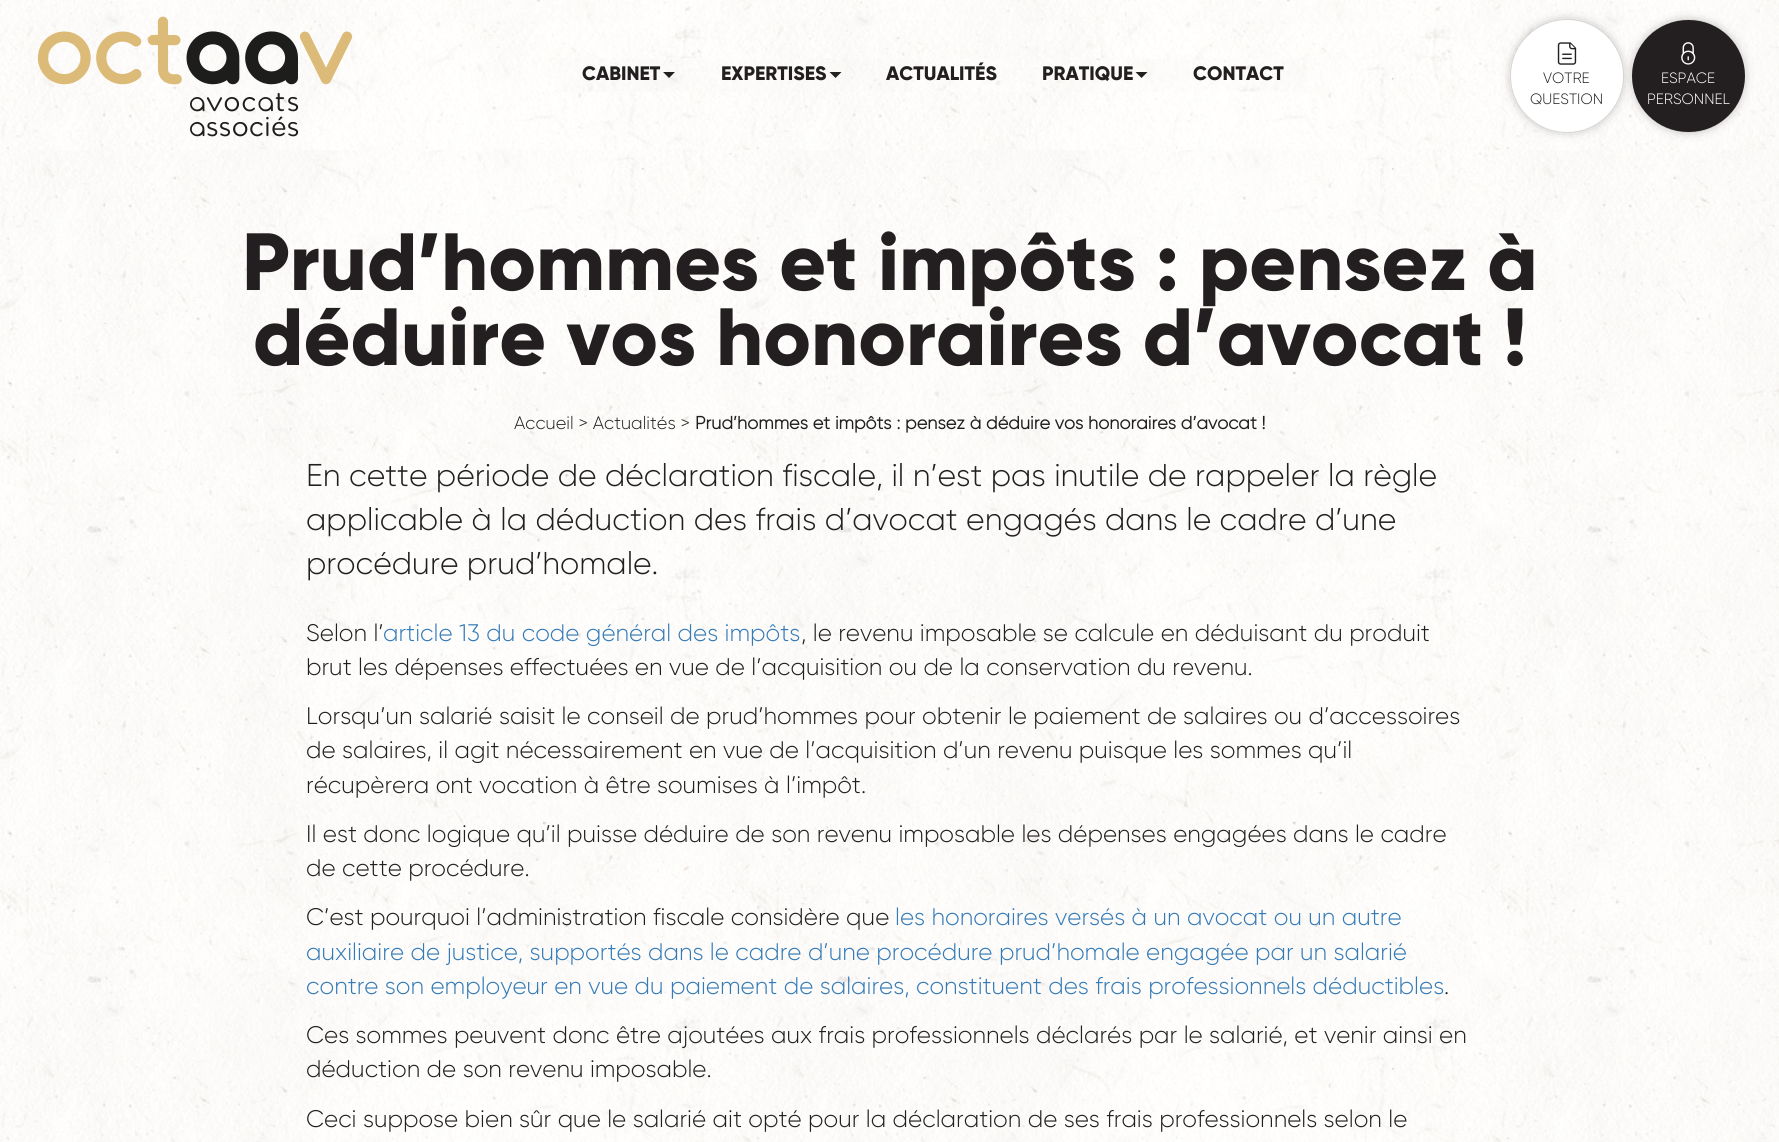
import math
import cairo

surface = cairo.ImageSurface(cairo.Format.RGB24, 1779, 1142)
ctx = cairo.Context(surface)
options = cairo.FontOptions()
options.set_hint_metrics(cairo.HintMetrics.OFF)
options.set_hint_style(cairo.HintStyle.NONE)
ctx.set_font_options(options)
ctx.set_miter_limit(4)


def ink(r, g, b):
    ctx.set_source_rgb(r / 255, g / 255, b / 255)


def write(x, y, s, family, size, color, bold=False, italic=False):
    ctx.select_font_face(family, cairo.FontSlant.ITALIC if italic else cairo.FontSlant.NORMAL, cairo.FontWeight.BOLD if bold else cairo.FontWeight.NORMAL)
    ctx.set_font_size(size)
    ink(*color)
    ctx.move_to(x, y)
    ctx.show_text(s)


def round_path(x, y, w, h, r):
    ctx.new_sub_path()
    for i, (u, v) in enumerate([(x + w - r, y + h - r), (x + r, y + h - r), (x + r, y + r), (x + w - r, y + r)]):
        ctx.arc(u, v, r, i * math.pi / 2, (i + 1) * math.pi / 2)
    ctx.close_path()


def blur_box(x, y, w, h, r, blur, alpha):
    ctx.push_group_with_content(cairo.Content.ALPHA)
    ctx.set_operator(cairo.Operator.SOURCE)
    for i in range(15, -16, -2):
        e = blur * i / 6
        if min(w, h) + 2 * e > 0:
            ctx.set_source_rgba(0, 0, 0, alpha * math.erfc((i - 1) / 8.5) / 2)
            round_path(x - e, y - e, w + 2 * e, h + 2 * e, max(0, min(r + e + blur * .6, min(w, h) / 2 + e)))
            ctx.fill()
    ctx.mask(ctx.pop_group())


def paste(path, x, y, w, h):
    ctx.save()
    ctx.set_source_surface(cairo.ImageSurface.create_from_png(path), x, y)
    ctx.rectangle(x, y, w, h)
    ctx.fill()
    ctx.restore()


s1 = dict(family="Gilroy ExtraBold", size=19.5, color=(35, 31, 32))
s2 = dict(family="Gilroy Light", size=15, color=(35, 31, 32))
s3 = dict(family="Gilroy Light", size=15, color=(255, 255, 255))
s4 = dict(family="Gilroy ExtraBold", size=81, color=(35, 31, 32))
s5 = dict(family="Gilroy Light", size=18, color=(35, 31, 32))
s6 = dict(family="Gilroy", size=18, color=(35, 31, 32), bold=True)
s7 = dict(family="Gilroy Light", size=31.5, color=(35, 31, 32))
s8 = dict(family="Gilroy Light", size=24, color=(35, 31, 32))
s9 = dict(family="Gilroy Light", size=24, color=(51, 122, 183))

ink(255, 255, 255)
ctx.paint()
paste("pic1.png", 0, 0, 1779, 150)
paste("pic2.png", 37, 16, 316, 121)
paste("pic3.png", 559, 58, 748, 34)
write(582, 80, "CABINET", **s1)
ctx.new_path()
ctx.move_to(663, 72)
ctx.line_to(675, 72)
ctx.line_to(669, 78)
ctx.close_path()
ctx.fill()
write(721, 80, "EXPERTISES", **s1)
ctx.new_path()
ctx.move_to(829.5, 72)
ctx.line_to(841.5, 72)
ctx.line_to(835.5, 78)
ctx.close_path()
ctx.fill()
write(886, 80, "ACTUALITÉS", **s1)
write(1042, 80, "PRATIQUE", **s1)
ctx.new_path()
ctx.move_to(1135.5, 72)
ctx.line_to(1147.5, 72)
ctx.line_to(1141.5, 78)
ctx.close_path()
ctx.fill()
write(1193, 80, "CONTACT", **s1)
ink(35, 31, 32)
blur_box(1518, 27, 98, 98, 49, 7, 1)
ink(255, 255, 255)
ctx.arc(1567, 76, 56, 0, 2 * math.pi)
ctx.fill()
paste("pic4.png", 1557, 42, 20, 23)
write(1543, 83, "VOTRE", **s2)
write(1530, 104, "QUESTION", **s2)
ink(35, 31, 32)
blur_box(1640, 27, 97, 98, 48.5, 7, 1)
ink(35, 31, 32)
round_path(1632, 20, 113, 112, 56)
ctx.fill()
paste("pic5.png", 1681, 42, 15, 23)
write(1661, 83, "ESPACE", **s3)
write(1647, 104, "PERSONNEL", **s3)
paste("pic6.png", 0, 150, 1779, 992)
write(242, 290, "Prud’hommes et impôts : pensez à", **s4)
write(253, 365, "déduire vos honoraires d’avocat !", **s4)
write(514, 429, "Accueil > Actualités >", **s5)
write(695, 429, "Prud’hommes et impôts : pensez à déduire vos honoraires d’avocat !", **s6)
write(306, 486, "En cette période de déclaration fiscale, il n’est pas inutile de rappeler la règle", **s7)
write(306, 530, "applicable à la déduction des frais d’avocat engagés dans le cadre d’une", **s7)
write(306, 574, "procédure prud’homale.", **s7)
write(306, 641, "Selon l’", **s8)
write(383, 641, "article 13 du code général des impôts", **s9)
write(801, 641, ", le revenu imposable se calcule en déduisant du produit", **s8)
write(306, 675, "brut les dépenses effectuées en vue de l’acquisition ou de la conservation du revenu.", **s8)
write(306, 724, "Lorsqu’un salarié saisit le conseil de prud’hommes pour obtenir le paiement de salaires ou d’accessoires", **s8)
write(306, 758, "de salaires, il agit nécessairement en vue de l’acquisition d’un revenu puisque les sommes qu’il", **s8)
write(306, 793, "récupèrera ont vocation à être soumises à l’impôt.", **s8)
write(306, 842, "Il est donc logique qu’il puisse déduire de son revenu imposable les dépenses engagées dans le cadre", **s8)
write(306, 876, "de cette procédure.", **s8)
write(306, 925, "C’est pourquoi l’administration fiscale considère que", **s8)
write(895, 925, "les honoraires versés à un avocat ou un autre", **s9)
write(306, 960, "auxiliaire de justice, supportés dans le cadre d’une procédure prud’homale engagée par un salarié", **s9)
write(306, 994, "contre son employeur en vue du paiement de salaires, constituent des frais professionnels déductibles", **s9)
write(1444, 994, ".", **s8)
write(306, 1043, "Ces sommes peuvent donc être ajoutées aux frais professionnels déclarés par le salarié, et venir ainsi en", **s8)
write(306, 1077, "déduction de son revenu imposable.", **s8)
write(306, 1127, "Ceci suppose bien sûr que le salarié ait opté pour la déclaration de ses frais professionnels selon le", **s8)
surface.write_to_png("screenshot.png")
